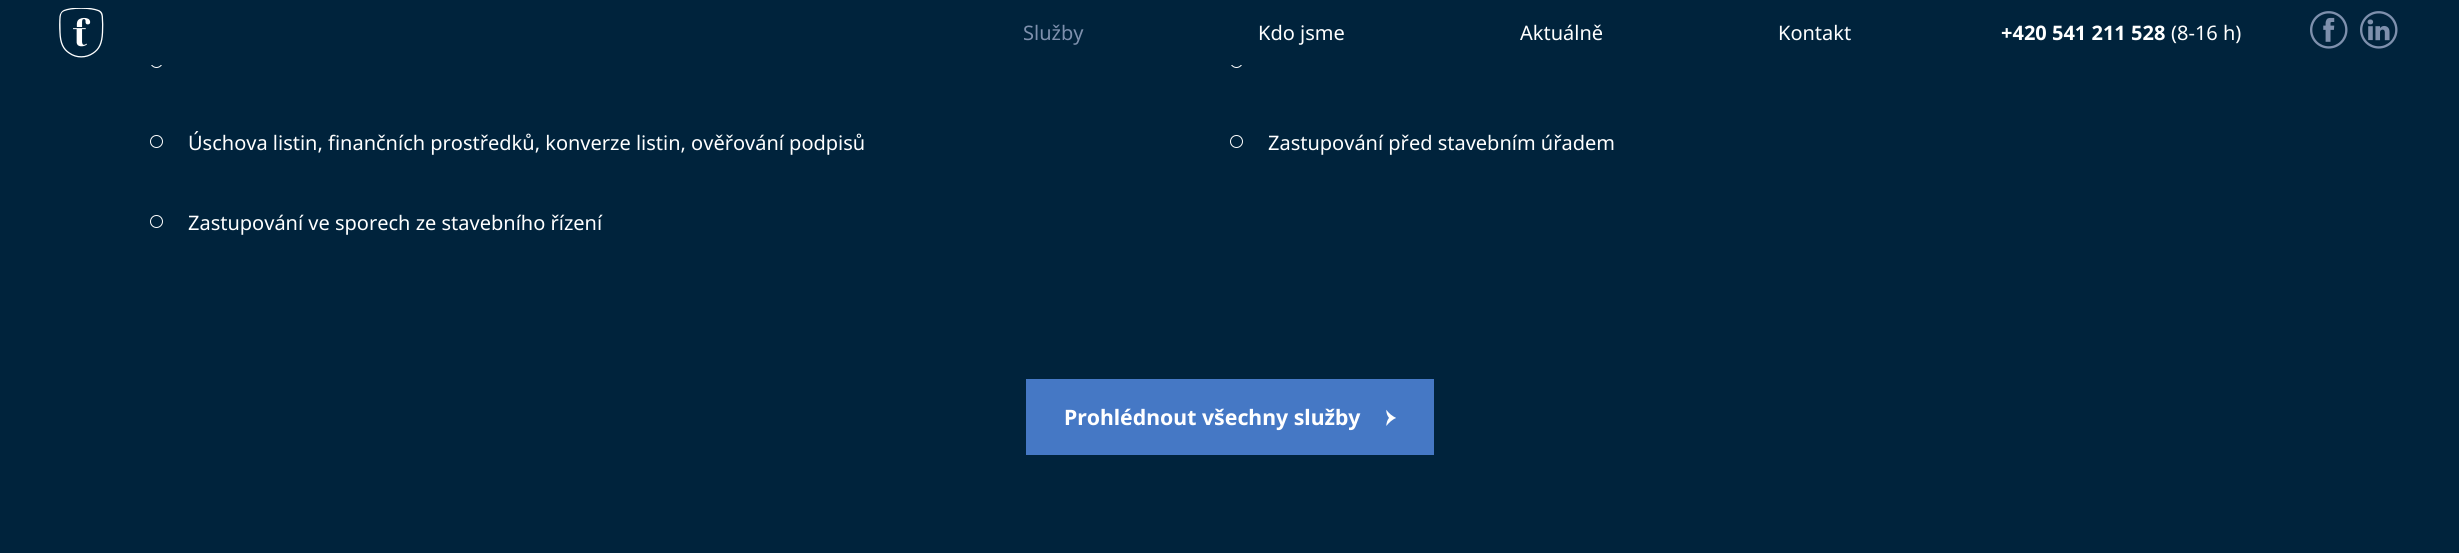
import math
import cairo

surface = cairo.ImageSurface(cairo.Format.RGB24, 2459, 553)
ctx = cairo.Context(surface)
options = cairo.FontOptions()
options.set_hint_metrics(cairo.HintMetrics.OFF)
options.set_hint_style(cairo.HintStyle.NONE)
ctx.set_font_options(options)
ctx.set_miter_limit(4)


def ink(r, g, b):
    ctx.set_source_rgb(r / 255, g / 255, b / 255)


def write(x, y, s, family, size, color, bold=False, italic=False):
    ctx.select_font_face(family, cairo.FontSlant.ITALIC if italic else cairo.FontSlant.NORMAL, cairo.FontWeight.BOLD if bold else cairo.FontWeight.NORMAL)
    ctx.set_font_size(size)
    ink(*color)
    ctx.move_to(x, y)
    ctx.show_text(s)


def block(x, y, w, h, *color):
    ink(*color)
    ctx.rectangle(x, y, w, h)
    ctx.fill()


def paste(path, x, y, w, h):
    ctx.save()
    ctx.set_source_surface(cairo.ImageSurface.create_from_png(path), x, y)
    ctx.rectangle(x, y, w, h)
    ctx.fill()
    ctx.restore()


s1 = dict(family="Noto Sans", size=20, color=(126, 144, 173))
s2 = dict(family="Noto Sans", size=20, color=(255, 255, 255))
s3 = dict(family="Noto Sans", size=20, color=(255, 255, 255), bold=True)
s4 = dict(family="Noto Sans", size=21.25, color=(255, 255, 255), bold=True)

ink(0, 35, 60)
ctx.paint()
ctx.arc(156.5, 61.5, 6, 0, 2 * math.pi)
ink(255, 255, 255)
ctx.set_line_width(1)
ctx.stroke()
ctx.arc(1236.5, 61.5, 6, 0, 2 * math.pi)
ctx.stroke()
block(150, 55, 1093, 10, 0, 35, 60)
paste("pic1.png", 59, 8, 45, 50)
write(1023, 40, "Služby", **s1)
write(1258, 40, "Kdo jsme", **s2)
write(1520, 40, "Aktuálně", **s2)
write(1778, 40, "Kontakt", **s2)
write(2001, 40, "+420 541 211 528", **s3)
write(2171, 40, "(8-16 h)", **s2)
paste("pic2.png", 2310, 11, 38, 38)
paste("pic3.png", 2360, 11, 38, 38)
ctx.arc(156.5, 141.5, 6, 0, 2 * math.pi)
ctx.stroke()
write(188, 150, "Úschova listin, finančních prostředků, konverze listin, ověřování podpisů", **s2)
ctx.new_path()
ctx.arc(1236.5, 141.5, 6, 0, 2 * math.pi)
ctx.stroke()
write(1268, 150, "Zastupování před stavebním úřadem", **s2)
ctx.new_path()
ctx.arc(156.5, 221.5, 6, 0, 2 * math.pi)
ctx.stroke()
write(188, 230, "Zastupování ve sporech ze stavebního řízení", **s2)
block(1026, 379, 408, 76, 69, 120, 197)
write(1064, 425, "Prohlédnout všechny služby", **s4)
paste("pic4.png", 1386, 409, 10, 17)
surface.write_to_png("screenshot.png")
